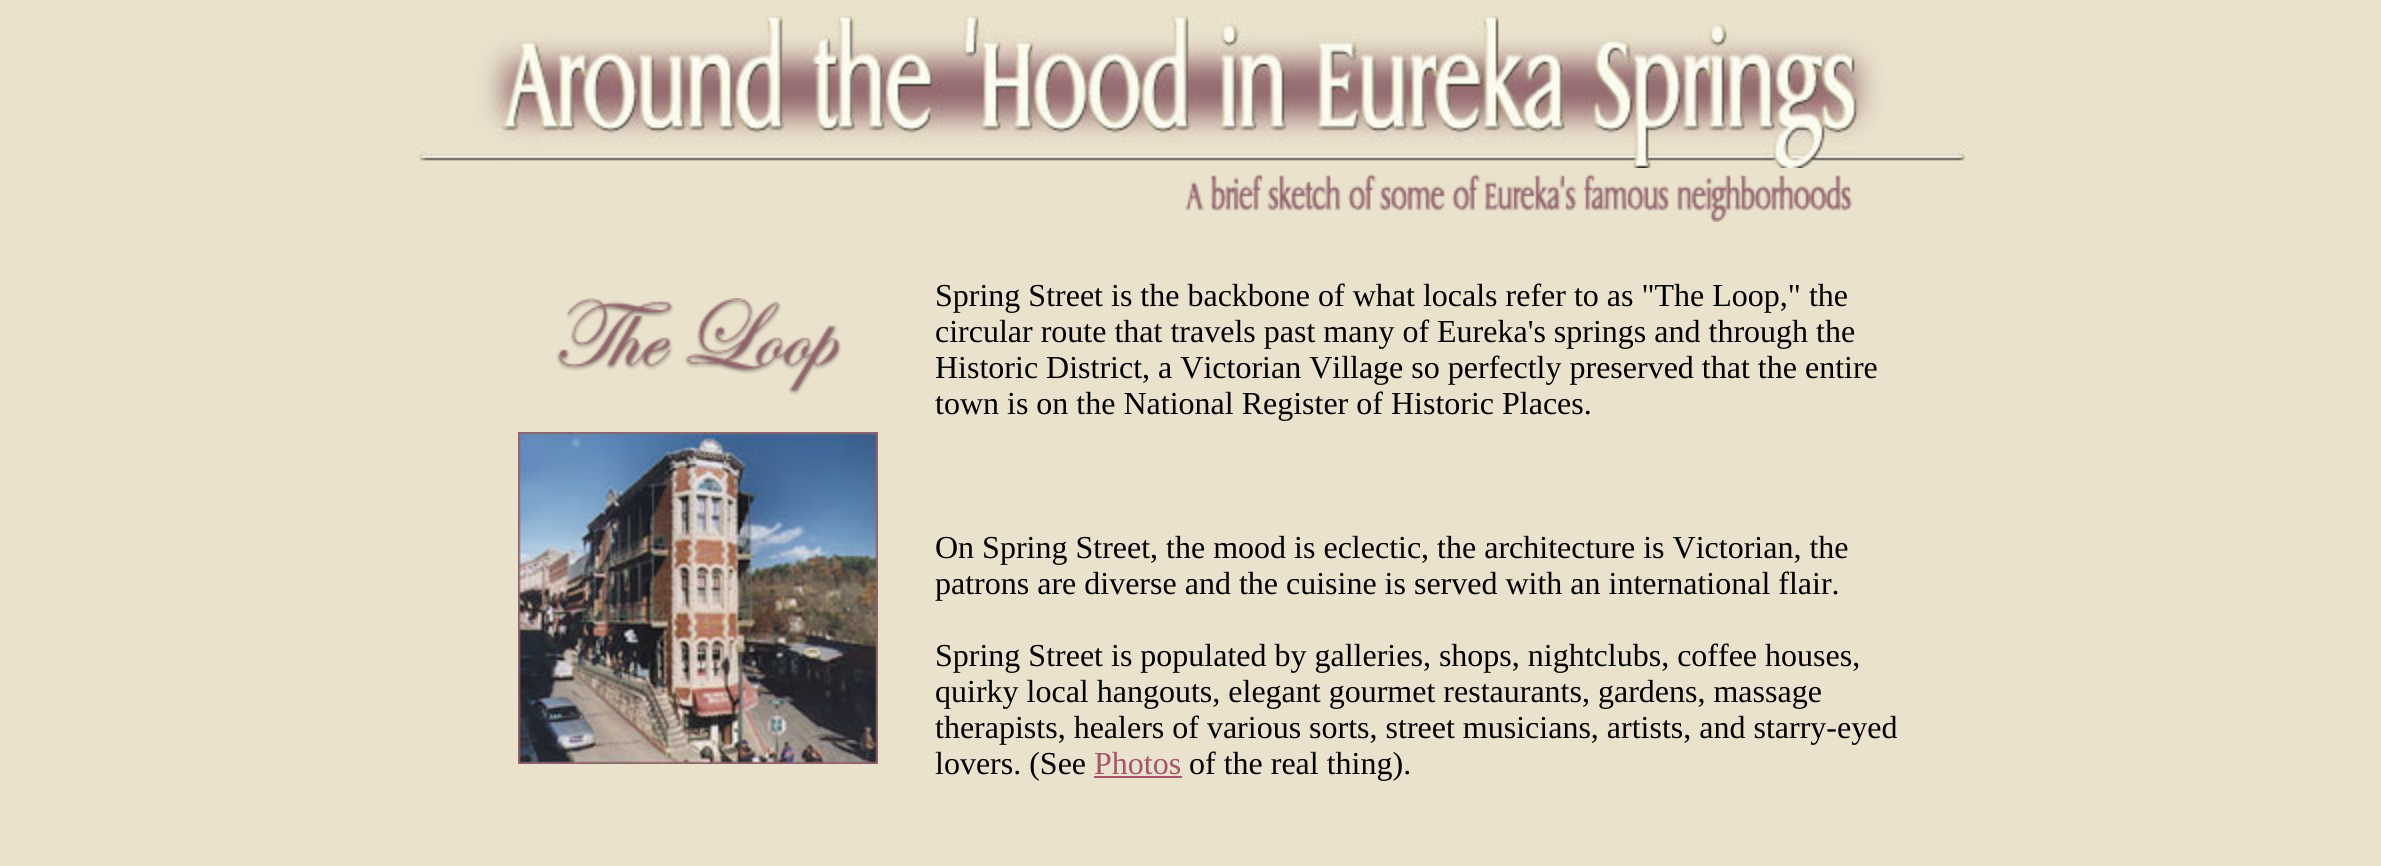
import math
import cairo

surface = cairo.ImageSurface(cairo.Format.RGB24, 2381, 866)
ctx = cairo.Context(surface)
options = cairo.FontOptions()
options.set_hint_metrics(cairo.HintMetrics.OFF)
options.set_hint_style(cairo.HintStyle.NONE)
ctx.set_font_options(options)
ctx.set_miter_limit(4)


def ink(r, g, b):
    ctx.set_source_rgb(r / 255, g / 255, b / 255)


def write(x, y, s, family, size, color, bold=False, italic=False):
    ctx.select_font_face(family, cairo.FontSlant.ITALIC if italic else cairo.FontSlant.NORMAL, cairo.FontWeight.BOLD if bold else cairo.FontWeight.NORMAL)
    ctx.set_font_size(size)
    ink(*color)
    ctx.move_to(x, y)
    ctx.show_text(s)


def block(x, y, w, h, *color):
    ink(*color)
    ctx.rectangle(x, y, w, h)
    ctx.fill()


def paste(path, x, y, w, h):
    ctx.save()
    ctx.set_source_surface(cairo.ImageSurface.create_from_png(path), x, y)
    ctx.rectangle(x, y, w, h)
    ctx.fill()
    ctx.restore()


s1 = dict(family="Liberation Serif", size=32, color=(0, 0, 0))
s2 = dict(family="Liberation Serif", size=32, color=(166, 84, 105))

ink(234, 226, 205)
ctx.paint()
paste("pic1.png", 416, 15, 1552, 153)
paste("pic2.png", 1185, 173, 668, 49)
paste("pic3.png", 556, 298, 286, 97)
paste("pic4.png", 518, 432, 360, 332)
write(935, 306, "Spring Street is the backbone of what locals refer to as \"The Loop,\" the", **s1)
write(935, 342, "circular route that travels past many of Eureka's springs and through the", **s1)
write(935, 378, "Historic District, a Victorian Village so perfectly preserved that the entire", **s1)
write(935, 414, "town is on the National Register of Historic Places.", **s1)
write(935, 558, "On Spring Street, the mood is eclectic, the architecture is Victorian, the", **s1)
write(935, 594, "patrons are diverse and the cuisine is served with an international flair.", **s1)
write(935, 666, "Spring Street is populated by galleries, shops, nightclubs, coffee houses,", **s1)
write(935, 702, "quirky local hangouts, elegant gourmet restaurants, gardens, massage", **s1)
write(935, 738, "therapists, healers of various sorts, street musicians, artists, and starry-eyed", **s1)
write(935, 774, "lovers. (See", **s1)
write(1094, 774, "Photos", **s2)
block(1094, 776, 88, 2, 166, 84, 105)
write(1189, 774, "of the real thing).", **s1)
surface.write_to_png("screenshot.png")
